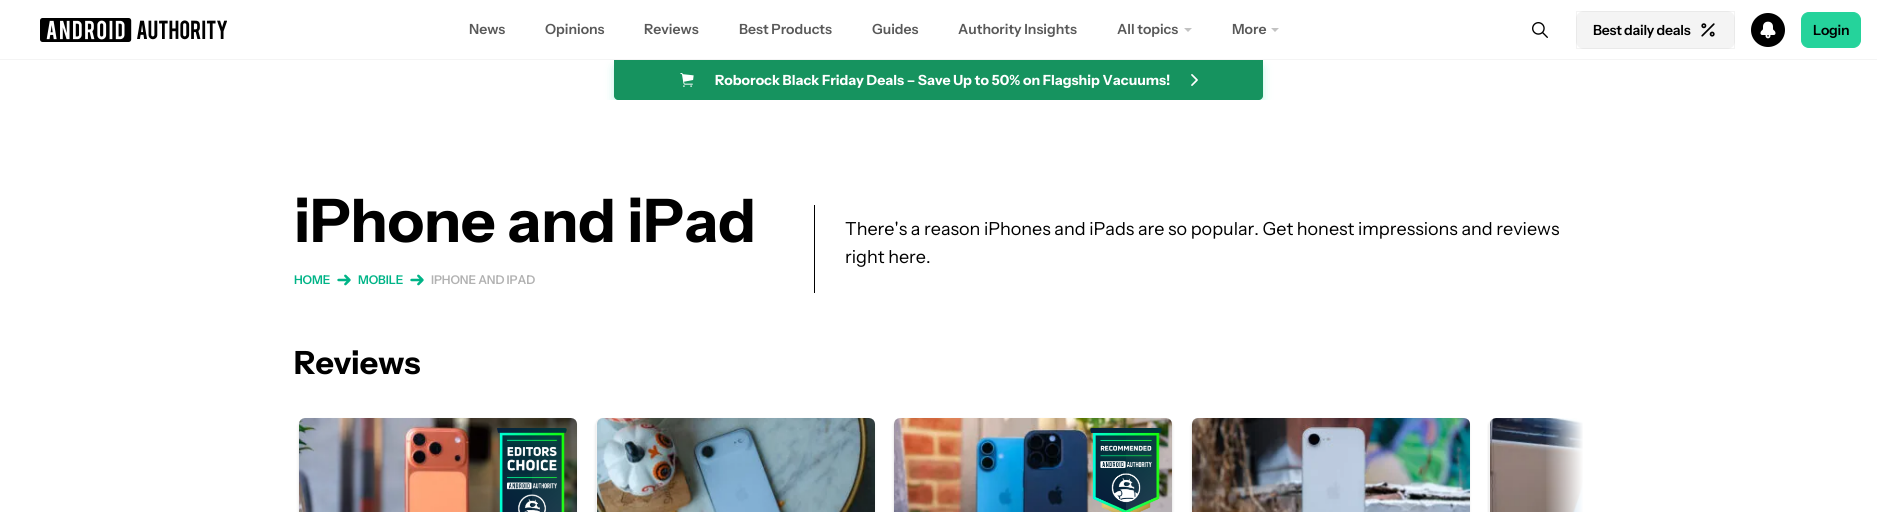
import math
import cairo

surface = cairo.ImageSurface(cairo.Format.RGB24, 1877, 512)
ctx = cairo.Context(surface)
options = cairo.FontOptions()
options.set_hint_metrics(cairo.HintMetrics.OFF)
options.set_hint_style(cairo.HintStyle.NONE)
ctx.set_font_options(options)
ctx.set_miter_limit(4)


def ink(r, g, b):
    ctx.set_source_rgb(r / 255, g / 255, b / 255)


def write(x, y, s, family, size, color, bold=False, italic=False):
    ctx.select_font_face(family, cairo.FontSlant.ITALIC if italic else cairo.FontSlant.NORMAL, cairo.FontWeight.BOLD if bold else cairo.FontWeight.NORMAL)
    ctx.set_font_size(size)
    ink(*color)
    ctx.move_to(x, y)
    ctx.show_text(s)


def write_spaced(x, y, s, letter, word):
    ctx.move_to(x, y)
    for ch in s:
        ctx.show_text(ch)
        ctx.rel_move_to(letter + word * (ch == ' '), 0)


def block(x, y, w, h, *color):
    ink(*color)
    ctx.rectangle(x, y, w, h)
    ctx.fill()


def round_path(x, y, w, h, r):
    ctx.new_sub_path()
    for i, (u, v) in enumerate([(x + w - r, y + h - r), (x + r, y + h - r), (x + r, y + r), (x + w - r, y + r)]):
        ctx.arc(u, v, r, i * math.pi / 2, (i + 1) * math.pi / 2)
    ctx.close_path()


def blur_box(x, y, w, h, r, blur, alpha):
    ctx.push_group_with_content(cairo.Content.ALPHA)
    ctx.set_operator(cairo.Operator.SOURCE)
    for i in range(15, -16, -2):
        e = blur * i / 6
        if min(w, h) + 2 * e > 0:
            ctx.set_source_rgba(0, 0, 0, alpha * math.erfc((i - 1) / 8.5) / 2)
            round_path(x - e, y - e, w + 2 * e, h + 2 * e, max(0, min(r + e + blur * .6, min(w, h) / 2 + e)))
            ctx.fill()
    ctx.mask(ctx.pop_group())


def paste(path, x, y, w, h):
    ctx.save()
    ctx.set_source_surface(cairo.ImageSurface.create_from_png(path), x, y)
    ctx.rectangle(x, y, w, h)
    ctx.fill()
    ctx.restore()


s1 = dict(family="Instrument Sans SemiBold", size=14, color=(89, 89, 89))
s2 = dict(family="Instrument Sans", size=14, color=(255, 255, 255), bold=True)
s3 = dict(family="Instrument Sans", size=60, color=(0, 0, 0), bold=True)
s4 = dict(family="Instrument Sans", size=18, color=(0, 0, 0))
s5 = dict(family="Instrument Sans", size=32, color=(0, 0, 0), bold=True)

ink(255, 255, 255)
ctx.paint()
ctx.save()
ctx.rectangle(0, 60, 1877, 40)
ctx.clip()
ink(0, 212, 159)
blur_box(618, 68, 641, 32, 0, 6, 0.5)
ctx.restore()
block(0, 59, 1877, 1, 244, 244, 244)
paste("pic1.png", 40, 18, 187, 24)
write(469, 34, "News", **s1)
write(545, 34, "Opinions", **s1)
write(644, 34, "Reviews", **s1)
write(739, 34, "Best Products", **s1)
write(872, 34, "Guides", **s1)
write(958, 34, "Authority Insights", **s1)
write(1117, 34, "All topics", **s1)
ink(194, 194, 194)
ctx.new_path()
ctx.move_to(1184, 28)
ctx.line_to(1192, 28)
ctx.line_to(1188, 32)
ctx.close_path()
ctx.fill()
write(1232, 34, "More", **s1)
ink(194, 194, 194)
ctx.new_path()
ctx.move_to(1271, 28)
ctx.line_to(1279, 28)
ctx.line_to(1275, 32)
ctx.close_path()
ctx.fill()
paste("pic2.png", 1532, 22, 16, 16)
ink(244, 244, 244)
round_path(1576, 11, 159, 38, 8)
ctx.fill()
ctx.rectangle(1576.5, 11.5, 158, 37)
ctx.set_source_rgba(0, 0, 0, 0.05)
ctx.set_line_width(1)
ctx.stroke()
ink(0, 0, 0)
write_spaced(1593, 35, "Best daily deals", -0.25, 0)
paste("pic3.png", 1701, 23, 14, 14)
ctx.arc(1768, 30, 17, 0, 2 * math.pi)
ctx.fill()
paste("pic4.png", 1760, 21, 16, 18)
ink(37, 211, 155)
round_path(1801.5, 12.5, 59, 35, 7.5)
ctx.fill_preserve()
ctx.stroke()
ink(0, 0, 0)
write_spaced(1813, 35, "Login", -0.25, 0)
ink(22, 147, 95)
ctx.new_path()
ctx.move_to(614, 60)
ctx.line_to(1263, 60)
ctx.line_to(1263, 96)
ctx.curve_to(1263, 98, 1261, 100, 1259, 100)
ctx.line_to(618, 100)
ctx.curve_to(616, 100, 614, 98, 614, 96)
ctx.close_path()
ctx.fill()
paste("pic5.png", 680, 73, 14, 14)
write(715, 85, "Roborock Black Friday Deals – Save Up to 50% on Flagship Vacuums!", **s2)
paste("pic6.png", 1191, 74, 7, 12)
write(294, 242, "iPhone and iPad", **s3)
block(814, 205, 1, 88, 0, 0, 0)
write(845, 235, "There's a reason iPhones and iPads are so popular. Get honest impressions and reviews", **s4)
write(845, 263, "right here.", **s4)
ctx.select_font_face("Instrument Sans SemiBold")
ctx.set_font_size(12)
ink(0, 180, 135)
write_spaced(294, 284, "HOME", -0.1, 0)
paste("pic7.png", 337, 274, 14, 12)
write_spaced(358, 284, "MOBILE", -0.1, 0)
paste("pic7.png", 410, 274, 14, 12)
ink(178, 178, 178)
write_spaced(431, 284, "IPHONE AND IPAD", -0.1, 0)
write(294, 374, "Reviews", **s5)
ink(0, 0, 0)
blur_box(299, 420, 277, 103, 6, 1.5, 0.15)
paste("pic8.png", 299, 418, 278, 94)
paste("pic9.png", 497, 428, 70, 84)
blur_box(596, 420, 278, 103, 6, 1.5, 0.15)
ink(244, 244, 244)
ctx.new_path()
ctx.move_to(602, 418)
ctx.line_to(868, 418)
ctx.curve_to(871.5, 418, 874, 420.5, 874, 424)
ctx.line_to(874, 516)
ctx.curve_to(874, 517, 873, 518, 872, 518)
ctx.line_to(598, 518)
ctx.curve_to(597, 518, 596, 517, 596, 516)
ctx.line_to(596, 424)
ctx.curve_to(596, 420.5, 598.5, 418, 602, 418)
ctx.close_path()
ctx.fill()
paste("pic10.png", 597, 418, 278, 94)
ink(0, 0, 0)
blur_box(894, 420, 278, 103, 6, 1.5, 0.15)
paste("pic11.png", 894, 418, 278, 94)
paste("pic12.png", 1090, 428, 72, 84)
blur_box(1192, 420, 277, 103, 6, 1.5, 0.15)
paste("pic13.png", 1192, 418, 278, 94)
ctx.save()
ctx.rectangle(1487, 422, 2, 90)
ctx.clip()
blur_box(1489, 420, 278, 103, 6, 1.5, 0.15)
ctx.restore()
ink(244, 244, 244)
ctx.new_path()
ctx.move_to(1495, 418)
ctx.line_to(1584, 418)
ctx.line_to(1584, 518)
ctx.line_to(1491, 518)
ctx.curve_to(1490, 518, 1489, 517, 1489, 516)
ctx.line_to(1489, 424)
ctx.curve_to(1489, 420.5, 1491.5, 418, 1495, 418)
ctx.close_path()
ctx.fill()
paste("pic14.png", 1490, 418, 93, 94)
gradient = cairo.LinearGradient(1544, 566, 1584, 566)
gradient.add_color_stop_rgba(0.02, 1, 1, 1, 0)
gradient.add_color_stop_rgba(0.99, 1, 1, 1, 1)
ctx.set_source(gradient)
ctx.rectangle(1546, 418, 38, 94)
ctx.fill()
surface.write_to_png("screenshot.png")
